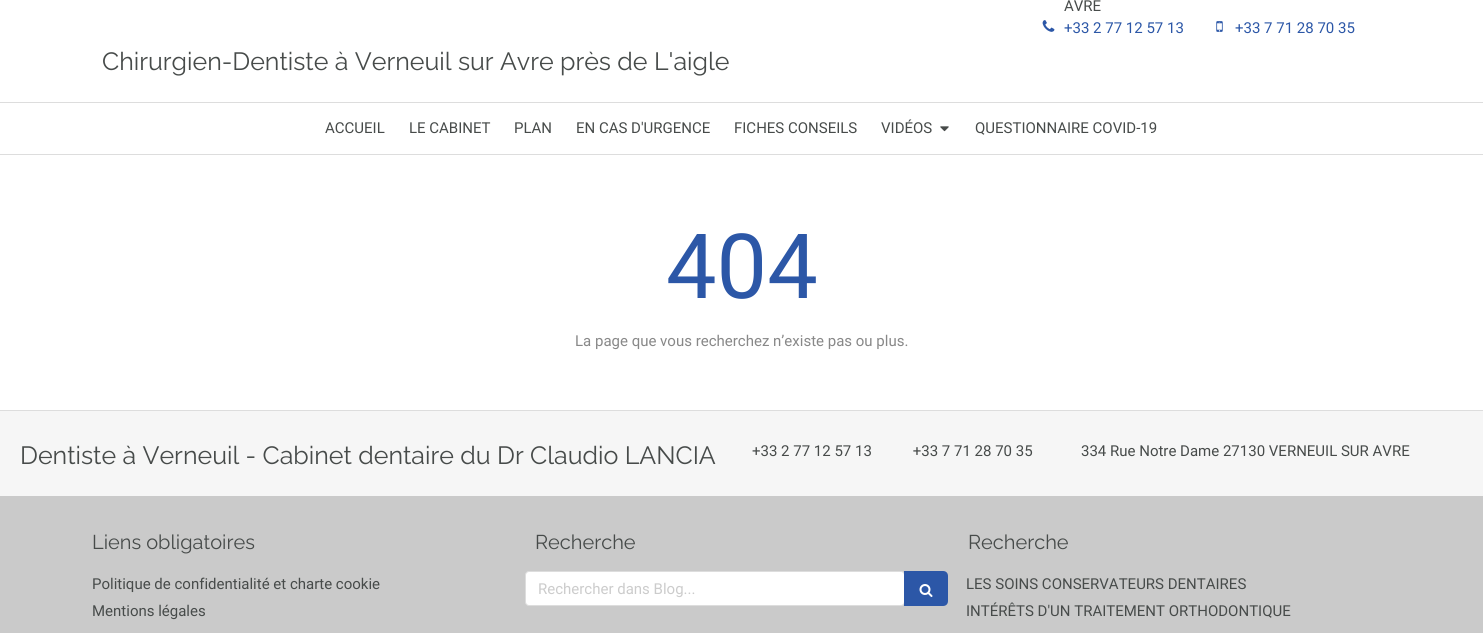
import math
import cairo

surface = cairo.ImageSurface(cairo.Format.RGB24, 1483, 633)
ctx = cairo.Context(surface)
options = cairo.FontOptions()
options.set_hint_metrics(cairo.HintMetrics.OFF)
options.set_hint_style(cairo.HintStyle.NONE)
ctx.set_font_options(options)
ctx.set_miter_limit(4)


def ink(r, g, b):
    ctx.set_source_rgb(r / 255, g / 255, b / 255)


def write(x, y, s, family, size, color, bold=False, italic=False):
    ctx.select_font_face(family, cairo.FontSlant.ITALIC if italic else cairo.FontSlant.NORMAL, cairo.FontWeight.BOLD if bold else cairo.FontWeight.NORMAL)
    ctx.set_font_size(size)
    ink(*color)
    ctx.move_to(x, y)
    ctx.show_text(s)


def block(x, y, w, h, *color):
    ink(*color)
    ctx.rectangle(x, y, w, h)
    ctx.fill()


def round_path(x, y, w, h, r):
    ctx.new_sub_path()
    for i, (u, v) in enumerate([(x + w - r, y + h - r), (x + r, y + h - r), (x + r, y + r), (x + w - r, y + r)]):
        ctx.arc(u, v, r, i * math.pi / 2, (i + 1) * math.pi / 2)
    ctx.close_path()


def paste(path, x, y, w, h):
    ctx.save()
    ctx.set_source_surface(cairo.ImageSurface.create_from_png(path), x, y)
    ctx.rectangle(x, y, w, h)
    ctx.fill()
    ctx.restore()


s1 = dict(family="Roboto", size=15, color=(71, 75, 74))
s2 = dict(family="Roboto", size=15, color=(44, 87, 167))
s3 = dict(family="Raleway", size=25, color=(71, 75, 74))
s4 = dict(family="Roboto", size=90, color=(44, 87, 167))
s5 = dict(family="Roboto", size=15, color=(136, 136, 136))
s6 = dict(family="Raleway", size=20, color=(71, 75, 74))
s7 = dict(family="Roboto", size=15, color=(204, 204, 204))

ink(255, 255, 255)
ctx.paint()
write(1064, 11, "AVRE", **s1)
paste("pic1.png", 1042, 20, 13, 12)
write(1064, 33, "+33 2 77 12 57 13", **s2)
paste("pic2.png", 1216, 21, 7, 11)
write(1235, 33, "+33 7 71 28 70 35", **s2)
write(102, 70, "Chirurgien-Dentiste à Verneuil sur Avre près de L'aigle", **s3)
block(0, 102, 1483, 1, 221, 221, 221)
block(0, 154, 1483, 1, 221, 221, 221)
write(325, 133, "ACCUEIL", **s1)
write(409, 133, "LE CABINET", **s1)
write(514, 133, "PLAN", **s1)
write(576, 133, "EN CAS D'URGENCE", **s1)
write(734, 133, "FICHES CONSEILS", **s1)
write(881, 133, "VIDÉOS", **s1)
paste("pic3.png", 940, 126, 9, 6)
write(975, 133, "QUESTIONNAIRE COVID-19", **s1)
write(666, 298, "404", **s4)
write(575, 346, "La page que vous recherchez n’existe pas ou plus.", **s5)
block(0, 410, 1483, 1, 221, 221, 221)
block(0, 411, 1483, 85, 246, 246, 246)
write(20, 464, "Dentiste à Verneuil - Cabinet dentaire du Dr Claudio LANCIA", **s3)
write(752, 456, "+33 2 77 12 57 13           +33 7 71 28 70 35             334 Rue Notre Dame 27130 VERNEUIL SUR AVRE", **s1)
block(0, 496, 1483, 137, 202, 202, 202)
write(92, 549, "Liens obligatoires", **s6)
write(92, 589, "Politique de confidentialité et charte cookie", **s1)
write(92, 616, "Mentions légales", **s1)
write(535, 549, "Recherche", **s6)
ink(255, 255, 255)
round_path(525.5, 571.5, 379, 34, 3.5)
ctx.fill_preserve()
ink(221, 221, 221)
ctx.set_line_width(1)
ctx.stroke()
write(538, 594, "Rechercher dans Blog...", **s7)
ink(44, 87, 167)
ctx.new_path()
ctx.move_to(904, 571)
ctx.line_to(943, 571)
ctx.curve_to(946, 571, 948, 573, 948, 576)
ctx.line_to(948, 601)
ctx.curve_to(948, 604, 946, 606, 943, 606)
ctx.line_to(904, 606)
ctx.close_path()
ctx.fill()
paste("pic4.png", 919, 584, 14, 13)
write(968, 549, "Recherche", **s6)
write(966, 589, "LES SOINS CONSERVATEURS DENTAIRES", **s1)
write(966, 616, "INTÉRÊTS D'UN TRAITEMENT ORTHODONTIQUE", **s1)
surface.write_to_png("screenshot.png")
